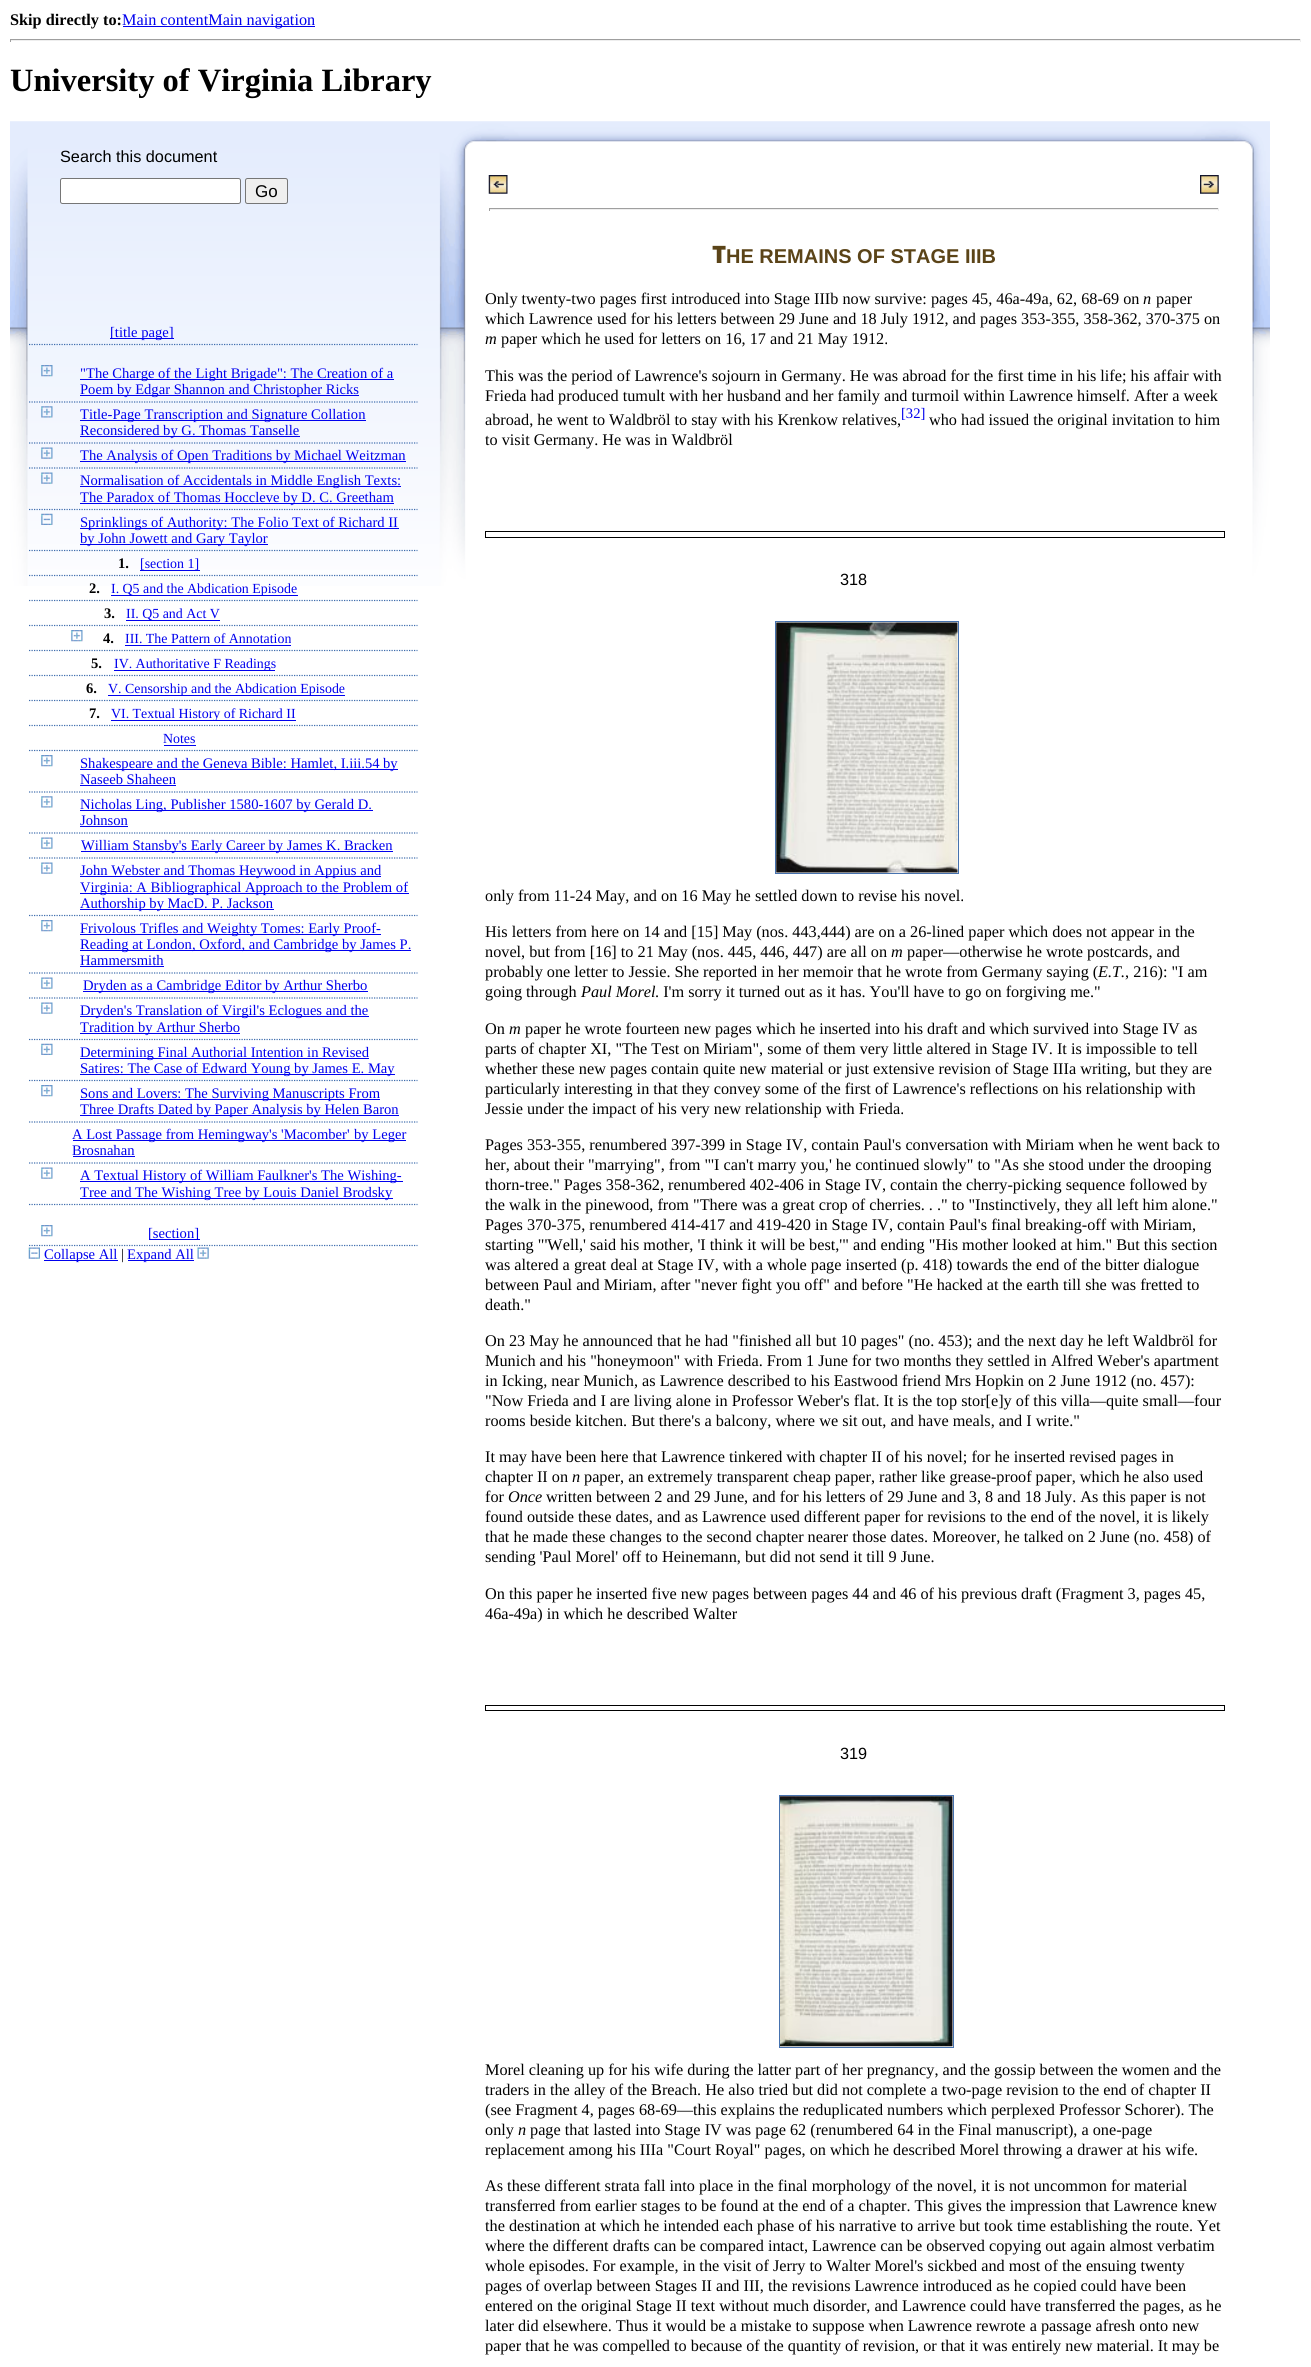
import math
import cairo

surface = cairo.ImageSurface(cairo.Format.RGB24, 1311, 2367)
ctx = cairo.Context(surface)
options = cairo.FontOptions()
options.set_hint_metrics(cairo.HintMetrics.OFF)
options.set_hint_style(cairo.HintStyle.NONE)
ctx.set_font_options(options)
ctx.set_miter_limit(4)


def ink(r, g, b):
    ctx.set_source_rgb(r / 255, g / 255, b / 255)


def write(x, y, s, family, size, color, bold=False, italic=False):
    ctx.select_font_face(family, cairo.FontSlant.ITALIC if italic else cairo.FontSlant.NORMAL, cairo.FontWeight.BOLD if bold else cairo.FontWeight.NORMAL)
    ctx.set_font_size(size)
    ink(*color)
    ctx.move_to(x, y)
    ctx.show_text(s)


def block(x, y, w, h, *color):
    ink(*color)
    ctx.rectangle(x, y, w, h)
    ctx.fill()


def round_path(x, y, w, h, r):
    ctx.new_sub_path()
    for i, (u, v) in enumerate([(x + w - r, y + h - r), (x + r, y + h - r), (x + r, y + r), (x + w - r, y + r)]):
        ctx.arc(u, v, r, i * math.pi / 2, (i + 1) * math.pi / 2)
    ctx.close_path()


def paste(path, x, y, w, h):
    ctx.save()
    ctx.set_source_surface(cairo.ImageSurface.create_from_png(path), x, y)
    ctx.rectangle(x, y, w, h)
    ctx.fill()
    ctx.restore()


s1 = dict(family="Liberation Serif", size=16.25, color=(0, 0, 0), bold=True)
s2 = dict(family="Liberation Serif", size=16.25, color=(0, 0, 238))
s3 = dict(family="Liberation Serif", size=32.5, color=(0, 0, 0), bold=True)
s4 = dict(family="Liberation Sans", size=16.25, color=(0, 0, 0))
s5 = dict(family="Liberation Sans", size=17, color=(0, 0, 0))
s6 = dict(family="Liberation Serif", size=14.6, color=(0, 0, 238))
s7 = dict(family="Liberation Serif", size=14.6, color=(0, 0, 0), bold=True)
s8 = dict(family="Liberation Serif", size=13.9, color=(0, 0, 238))
s9 = dict(family="Liberation Serif", size=14.6, color=(0, 0, 0))
s10 = dict(family="Noto Sans Black", size=24, color=(91, 68, 24))
s11 = dict(family="Liberation Sans", size=20, color=(91, 68, 24), bold=True)
s12 = dict(family="Liberation Serif", size=16.25, color=(0, 0, 0))
s13 = dict(family="Liberation Serif", size=16.25, color=(0, 0, 0), italic=True)

ink(255, 255, 255)
ctx.paint()
write(10, 25, "Skip directly to:", **s1)
block(123, 26, 192, 1, 0, 0, 238)
write(122, 25, "Main contentMain navigation", **s2)
block(10, 39, 1291, 1, 159, 159, 159)
block(1300, 39, 1, 3, 238, 238, 238)
block(10, 40, 1291, 1, 238, 238, 238)
block(10, 39, 1, 3, 159, 159, 159)
write(10, 91, "University of Virginia Library", **s3)
paste("pic1.png", 10, 121, 1260, 465)
write(60, 162, "Search this document", **s4)
ink(255, 255, 255)
round_path(60.5, 178.5, 180, 25, 2)
ctx.fill_preserve()
ink(118, 118, 118)
ctx.set_line_width(1)
ctx.stroke()
ink(239, 239, 239)
round_path(245.5, 178.5, 42, 25, 2)
ctx.fill_preserve()
ink(118, 118, 118)
ctx.stroke()
write(255, 197, "Go", **s5)
ctx.new_path()
ctx.move_to(29, 344.5)
ctx.line_to(417.5, 344.5)
ink(63, 109, 173)
ctx.set_line_width(1.2)
ctx.set_dash([1.25, 1.25])
ctx.stroke()
block(110, 338, 64, 1, 0, 0, 238)
write(110, 337, "[title page]", **s6)
ctx.new_path()
ctx.move_to(29, 402)
ctx.line_to(417.5, 402)
ink(63, 109, 173)
ctx.stroke()
paste("pic2.png", 41, 365, 12, 12)
block(80, 379, 314, 1, 0, 0, 238)
write(80, 378, "\"The Charge of the Light Brigade\": The Creation of a", **s6)
block(80, 395, 279, 1, 0, 0, 238)
write(80, 394, "Poem by Edgar Shannon and Christopher Ricks", **s6)
ctx.new_path()
ctx.move_to(29, 443)
ctx.line_to(417.5, 443)
ink(63, 109, 173)
ctx.stroke()
paste("pic3.png", 41, 406, 12, 12)
block(80, 420, 286, 1, 0, 0, 238)
write(80, 419, "Title-Page Transcription and Signature Collation", **s6)
block(80, 436, 220, 1, 0, 0, 238)
write(80, 435, "Reconsidered by G. Thomas Tanselle", **s6)
ctx.new_path()
ctx.move_to(29, 468)
ctx.line_to(417.5, 468)
ink(63, 109, 173)
ctx.stroke()
paste("pic4.png", 41, 447, 12, 12)
block(80, 461, 326, 1, 0, 0, 238)
write(80, 460, "The Analysis of Open Traditions by Michael Weitzman", **s6)
ctx.new_path()
ctx.move_to(29, 509.5)
ctx.line_to(417.5, 509.5)
ink(63, 109, 173)
ctx.stroke()
paste("pic5.png", 41, 472, 12, 12)
block(80, 486, 321, 1, 0, 0, 238)
write(80, 485, "Normalisation of Accidentals in Middle English Texts:", **s6)
block(80, 503, 314, 1, 0, 0, 238)
write(80, 502, "The Paradox of Thomas Hoccleve by D. C. Greetham", **s6)
ctx.new_path()
ctx.move_to(29, 550.5)
ctx.line_to(417.5, 550.5)
ink(63, 109, 173)
ctx.stroke()
paste("pic6.png", 41, 513, 12, 12)
block(80, 528, 319, 1, 0, 0, 238)
write(80, 527, "Sprinklings of Authority: The Folio Text of Richard II", **s6)
block(80, 544, 188, 1, 0, 0, 238)
write(80, 543, "by John Jowett and Gary Taylor", **s6)
ctx.new_path()
ctx.move_to(29, 575.5)
ctx.line_to(417.5, 575.5)
ink(63, 109, 173)
ctx.stroke()
write(118, 568, "1.", **s7)
write(140, 568, "[section 1]", **s8)
block(140, 570, 60, 1, 0, 0, 238)
ctx.new_path()
ctx.move_to(29, 600.5)
ctx.line_to(417.5, 600.5)
ink(63, 109, 173)
ctx.stroke()
write(89, 593, "2.", **s7)
block(111, 595, 187, 1, 0, 0, 238)
write(111, 593, "I. Q5 and the Abdication Episode", **s8)
ctx.new_path()
ctx.move_to(29, 625.5)
ctx.line_to(417.5, 625.5)
ink(63, 109, 173)
ctx.stroke()
write(104, 618, "3.", **s7)
block(126, 620, 94, 1, 0, 0, 238)
write(126, 618, "II. Q5 and Act V", **s8)
ctx.new_path()
ctx.move_to(29, 650.5)
ctx.line_to(417.5, 650.5)
ink(63, 109, 173)
ctx.stroke()
paste("pic7.png", 71, 630, 12, 12)
write(103, 643, "4.", **s7)
write(125, 643, "III. The Pattern of Annotation", **s8)
block(125, 645, 166, 1, 0, 0, 238)
ctx.new_path()
ctx.move_to(29, 675.5)
ctx.line_to(417.5, 675.5)
ink(63, 109, 173)
ctx.stroke()
write(91, 668, "5.", **s7)
block(114, 670, 161, 1, 0, 0, 238)
write(114, 668, "IV. Authoritative F Readings", **s8)
ctx.new_path()
ctx.move_to(29, 700.5)
ctx.line_to(417.5, 700.5)
ink(63, 109, 173)
ctx.stroke()
write(86, 693, "6.", **s7)
block(108, 695, 237, 1, 0, 0, 238)
write(108, 693, "V. Censorship and the Abdication Episode", **s8)
ctx.new_path()
ctx.move_to(29, 725.5)
ctx.line_to(417.5, 725.5)
ink(63, 109, 173)
ctx.stroke()
write(89, 718, "7.", **s7)
block(111, 720, 185, 1, 0, 0, 238)
write(111, 718, "VI. Textual History of Richard II", **s8)
ctx.new_path()
ctx.move_to(29, 750.5)
ctx.line_to(417.5, 750.5)
ink(63, 109, 173)
ctx.stroke()
write(163, 743, "Notes", **s8)
block(164, 745, 32, 1, 0, 0, 238)
ctx.new_path()
ctx.move_to(29, 792)
ctx.line_to(417.5, 792)
ink(63, 109, 173)
ctx.stroke()
paste("pic7.png", 41, 755, 12, 12)
block(80, 769, 318, 1, 0, 0, 238)
write(80, 768, "Shakespeare and the Geneva Bible: Hamlet, I.iii.54", **s6)
write(383, 768, "by", **s6)
write(80, 784, "Naseeb Shaheen", **s6)
block(80, 785, 96, 1, 0, 0, 238)
ctx.new_path()
ctx.move_to(29, 833)
ctx.line_to(417.5, 833)
ink(63, 109, 173)
ctx.stroke()
paste("pic8.png", 41, 796, 12, 12)
block(80, 810, 293, 1, 0, 0, 238)
write(80, 809, "Nicholas Ling, Publisher 1580-1607 by Gerald D.", **s6)
write(80, 825, "Johnson", **s6)
block(80, 826, 48, 1, 0, 0, 238)
ctx.new_path()
ctx.move_to(29, 858)
ctx.line_to(417.5, 858)
ink(63, 109, 173)
ctx.stroke()
paste("pic9.png", 41, 837, 12, 12)
block(81, 851, 312, 1, 0, 0, 238)
write(81, 850, "William Stansby's Early Career by James K. Bracken", **s6)
ctx.new_path()
ctx.move_to(29, 915.5)
ctx.line_to(417.5, 915.5)
ink(63, 109, 173)
ctx.stroke()
paste("pic9.png", 41, 862, 12, 12)
block(80, 876, 301, 1, 0, 0, 238)
write(80, 875, "John Webster and Thomas Heywood in Appius and", **s6)
block(80, 893, 329, 1, 0, 0, 238)
write(80, 892, "Virginia: A Bibliographical Approach to the Problem of", **s6)
block(80, 909, 194, 1, 0, 0, 238)
write(80, 908, "Authorship by MacD. P. Jackson", **s6)
ctx.new_path()
ctx.move_to(29, 973)
ctx.line_to(417.5, 973)
ink(63, 109, 173)
ctx.stroke()
paste("pic7.png", 41, 920, 12, 12)
block(80, 934, 301, 1, 0, 0, 238)
write(80, 933, "Frivolous Trifles and Weighty Tomes: Early Proof-", **s6)
block(80, 950, 331, 1, 0, 0, 238)
write(80, 949, "Reading at London, Oxford, and Cambridge by James P.", **s6)
write(80, 965, "Hammersmith", **s6)
block(80, 966, 84, 1, 0, 0, 238)
ctx.new_path()
ctx.move_to(29, 998)
ctx.line_to(417.5, 998)
ink(63, 109, 173)
ctx.stroke()
paste("pic9.png", 41, 977, 12, 12)
block(83, 991, 285, 1, 0, 0, 238)
write(83, 990, "Dryden as a Cambridge Editor by Arthur Sherbo", **s6)
ctx.new_path()
ctx.move_to(29, 1039.5)
ctx.line_to(417.5, 1039.5)
ink(63, 109, 173)
ctx.stroke()
paste("pic9.png", 41, 1002, 12, 12)
block(80, 1016, 289, 1, 0, 0, 238)
write(80, 1015, "Dryden's Translation of Virgil's Eclogues and the", **s6)
block(80, 1033, 160, 1, 0, 0, 238)
write(80, 1032, "Tradition by Arthur Sherbo", **s6)
ctx.new_path()
ctx.move_to(29, 1080.5)
ctx.line_to(417.5, 1080.5)
ink(63, 109, 173)
ctx.stroke()
paste("pic10.png", 41, 1043, 12, 12)
block(80, 1058, 289, 1, 0, 0, 238)
write(80, 1057, "Determining Final Authorial Intention in Revised", **s6)
block(80, 1074, 315, 1, 0, 0, 238)
write(80, 1073, "Satires: The Case of Edward Young by James E. May", **s6)
ctx.new_path()
ctx.move_to(29, 1122)
ctx.line_to(417.5, 1122)
ink(63, 109, 173)
ctx.stroke()
paste("pic7.png", 41, 1085, 12, 12)
block(80, 1099, 300, 1, 0, 0, 238)
write(80, 1098, "Sons and Lovers: The Surviving Manuscripts From", **s6)
block(80, 1115, 319, 1, 0, 0, 238)
write(80, 1114, "Three Drafts Dated by Paper Analysis by Helen Baron", **s6)
ctx.new_path()
ctx.move_to(29, 1163)
ctx.line_to(417.5, 1163)
ink(63, 109, 173)
ctx.stroke()
block(73, 1140, 333, 1, 0, 0, 238)
write(72, 1139, "A Lost Passage from Hemingway's 'Macomber'", **s6)
write(354, 1139, "by Leger", **s6)
write(72, 1155, "Brosnahan", **s6)
block(73, 1156, 62, 1, 0, 0, 238)
ctx.new_path()
ctx.move_to(29, 1204.5)
ctx.line_to(417.5, 1204.5)
ink(63, 109, 173)
ctx.stroke()
paste("pic11.png", 41, 1167, 12, 12)
block(80, 1181, 323, 1, 0, 0, 238)
write(80, 1180, "A Textual History of William Faulkner's The Wishing-", **s6)
block(80, 1198, 313, 1, 0, 0, 238)
write(80, 1197, "Tree and The Wishing Tree by Louis Daniel Brodsky", **s6)
ctx.new_path()
ctx.move_to(29, 1245.5)
ctx.line_to(417.5, 1245.5)
ink(63, 109, 173)
ctx.stroke()
paste("pic7.png", 41, 1225, 12, 12)
block(149, 1239, 51, 1, 0, 0, 238)
write(148, 1238, "[section]", **s6)
paste("pic12.png", 28, 1247, 12, 12)
block(44, 1260, 74, 1, 0, 0, 238)
write(44, 1259, "Collapse All", **s6)
write(121, 1259, "|", **s9)
block(128, 1260, 66, 1, 0, 0, 238)
write(127, 1259, "Expand All", **s6)
paste("pic13.png", 197, 1247, 12, 12)
paste("pic14.png", 488, 175, 20, 19)
paste("pic15.png", 1200, 175, 19, 19)
block(489, 208, 730, 1, 159, 159, 159)
block(1218, 208, 1, 3, 238, 238, 238)
block(489, 209, 730, 1, 238, 238, 238)
block(489, 208, 1, 3, 159, 159, 159)
write(712, 263, "T", **s10)
write(726, 263, "HE REMAINS OF STAGE IIIB", **s11)
write(485, 304, "Only twenty-two pages first introduced into Stage IIIb now survive: pages 45, 46a-49a, 62, 68-69 on", **s12)
write(1143, 304, "n", **s13)
write(1156, 304, "paper", **s12)
write(485, 324, "which Lawrence used for his letters between 29 June and 18 July 1912, and pages 353-355, 358-362, 370-375 on", **s12)
write(485, 344, "m", **s13)
write(501, 344, "paper which he used for letters on 16, 17 and 21 May 1912.", **s12)
write(485, 381, "This was the period of Lawrence's sojourn in Germany. He was abroad for the first time in his life; his affair with", **s12)
write(485, 401, "Frieda had produced tumult with her husband and her family and turmoil within Lawrence himself. After a week", **s12)
write(485, 425, "abroad, he went to Waldbröl to stay with his Krenkow relatives,", **s12)
write(901, 418, "[32]", **s6)
write(929, 425, "who had issued the original invitation to him", **s12)
write(485, 445, "to visit Germany. He was in Waldbröl", **s12)
ctx.rectangle(485.5, 531.5, 739, 6)
ctx.set_line_width(1)
ctx.set_dash([])
ctx.stroke()
write(840, 585, "318", **s4)
ctx.rectangle(775.5, 621.5, 183, 252)
ink(70, 114, 175)
ctx.stroke()
paste("pic16.png", 776, 622, 182, 251)
write(485, 901, "only from 11-24 May, and on 16 May he settled down to revise his novel.", **s12)
write(485, 937, "His letters from here on 14 and [15] May (nos. 443,444) are on a 26-lined paper which does not appear in the", **s12)
write(485, 957, "novel, but from [16] to 21 May (nos. 445, 446, 447) are all on", **s12)
write(891, 957, "m", **s13)
write(907, 957, "paper—otherwise he wrote postcards, and", **s12)
write(485, 977, "probably one letter to Jessie. She reported in her memoir that he wrote from Germany saying (", **s12)
write(1098, 977, "E.T.", **s13)
write(1125, 977, ", 216): \"I am", **s12)
write(485, 997, "going through", **s12)
write(581, 997, "Paul Morel", **s13)
write(655, 997, ". I'm sorry it turned out as it has. You'll have to go on forgiving me.\"", **s12)
write(485, 1034, "On", **s12)
write(509, 1034, "m", **s13)
write(525, 1034, "paper he wrote fourteen new pages which he inserted into his draft and which survived into Stage IV as", **s12)
write(485, 1054, "parts of chapter XI, \"The Test on Miriam\", some of them very little altered in Stage IV. It is impossible to tell", **s12)
write(485, 1074, "whether these new pages contain quite new material or just extensive revision of Stage IIIa writing, but they are", **s12)
write(485, 1094, "particularly interesting in that they convey some of the first of Lawrence's reflections on his relationship with", **s12)
write(485, 1114, "Jessie under the impact of his very new relationship with Frieda.", **s12)
write(485, 1150, "Pages 353-355, renumbered 397-399 in Stage IV, contain Paul's conversation with Miriam when he went back to", **s12)
write(485, 1170, "her, about their \"marrying\", from \"'I can't marry you,' he continued slowly\" to \"As she stood under the drooping", **s12)
write(485, 1190, "thorn-tree.\" Pages 358-362, renumbered 402-406 in Stage IV, contain the cherry-picking sequence followed by", **s12)
write(485, 1210, "the walk in the pinewood, from \"There was a great crop of cherries. . .\" to \"Instinctively, they all left him alone.\"", **s12)
write(485, 1230, "Pages 370-375, renumbered 414-417 and 419-420 in Stage IV, contain Paul's final breaking-off with Miriam,", **s12)
write(485, 1250, "starting \"'Well,' said his mother, 'I think it will be best,'\" and ending \"His mother looked at him.\" But this section", **s12)
write(485, 1270, "was altered a great deal at Stage IV, with a whole page inserted (p. 418) towards the end of the bitter dialogue", **s12)
write(485, 1290, "between Paul and Miriam, after \"never fight you off\" and before \"He hacked at the earth till she was fretted to", **s12)
write(485, 1310, "death.\"", **s12)
write(485, 1346, "On 23 May he announced that he had \"finished all but 10 pages\" (no. 453); and the next day he left Waldbröl for", **s12)
write(485, 1366, "Munich and his \"honeymoon\" with Frieda. From 1 June for two months they settled in Alfred Weber's apartment", **s12)
write(485, 1386, "in Icking, near Munich, as Lawrence described to his Eastwood friend Mrs Hopkin on 2 June 1912 (no. 457):", **s12)
write(485, 1406, "\"Now Frieda and I are living alone in Professor Weber's flat. It is the top stor[e]y of this villa—quite small—four", **s12)
write(485, 1426, "rooms beside kitchen. But there's a balcony, where we sit out, and have meals, and I write.\"", **s12)
write(485, 1462, "It may have been here that Lawrence tinkered with chapter II of his novel; for he inserted revised pages in", **s12)
write(485, 1482, "chapter II on", **s12)
write(572, 1482, "n", **s13)
write(584, 1482, "paper, an extremely transparent cheap paper, rather like grease-proof paper, which he also used", **s12)
write(485, 1502, "for", **s12)
write(508, 1502, "Once", **s13)
write(546, 1502, "written between 2 and 29 June, and for his letters of 29 June and 3, 8 and 18 July. As this paper is not", **s12)
write(485, 1522, "found outside these dates, and as Lawrence used different paper for revisions to the end of the novel, it is likely", **s12)
write(485, 1542, "that he made these changes to the second chapter nearer those dates. Moreover, he talked on 2 June (no. 458) of", **s12)
write(485, 1562, "sending 'Paul Morel' off to Heinemann, but did not send it till 9 June.", **s12)
write(485, 1599, "On this paper he inserted five new pages between pages 44 and 46 of his previous draft (Fragment 3, pages 45,", **s12)
write(485, 1619, "46a-49a) in which he described Walter", **s12)
ctx.rectangle(485.5, 1705.5, 739, 5)
ctx.stroke()
write(840, 1759, "319", **s4)
ctx.rectangle(779.5, 1795.5, 174, 252)
ink(70, 114, 175)
ctx.stroke()
paste("pic17.png", 780, 1796, 173, 251)
write(485, 2075, "Morel cleaning up for his wife during the latter part of her pregnancy, and the gossip between the women and the", **s12)
write(485, 2095, "traders in the alley of the Breach. He also tried but did not complete a two-page revision to the end of chapter II", **s12)
write(485, 2115, "(see Fragment 4, pages 68-69—this explains the reduplicated numbers which perplexed Professor Schorer). The", **s12)
write(485, 2135, "only", **s12)
write(518, 2135, "n", **s13)
write(530, 2135, "page that lasted into Stage IV was page 62 (renumbered 64 in the Final manuscript), a one-page", **s12)
write(485, 2155, "replacement among his IIIa \"Court Royal\" pages, on which he described Morel throwing a drawer at his wife.", **s12)
write(485, 2191, "As these different strata fall into place in the final morphology of the novel, it is not uncommon for material", **s12)
write(485, 2211, "transferred from earlier stages to be found at the end of a chapter. This gives the impression that Lawrence knew", **s12)
write(485, 2231, "the destination at which he intended each phase of his narrative to arrive but took time establishing the route. Yet", **s12)
write(485, 2251, "where the different drafts can be compared intact, Lawrence can be observed copying out again almost verbatim", **s12)
write(485, 2271, "whole episodes. For example, in the visit of Jerry to Walter Morel's sickbed and most of the ensuing twenty", **s12)
write(485, 2291, "pages of overlap between Stages II and III, the revisions Lawrence introduced as he copied could have been", **s12)
write(485, 2311, "entered on the original Stage II text without much disorder, and Lawrence could have transferred the pages, as he", **s12)
write(485, 2331, "later did elsewhere. Thus it would be a mistake to suppose when Lawrence rewrote a passage afresh onto new", **s12)
write(485, 2351, "paper that he was compelled to because of the quantity of revision, or that it was entirely new material. It may be", **s12)
surface.write_to_png("screenshot.png")
